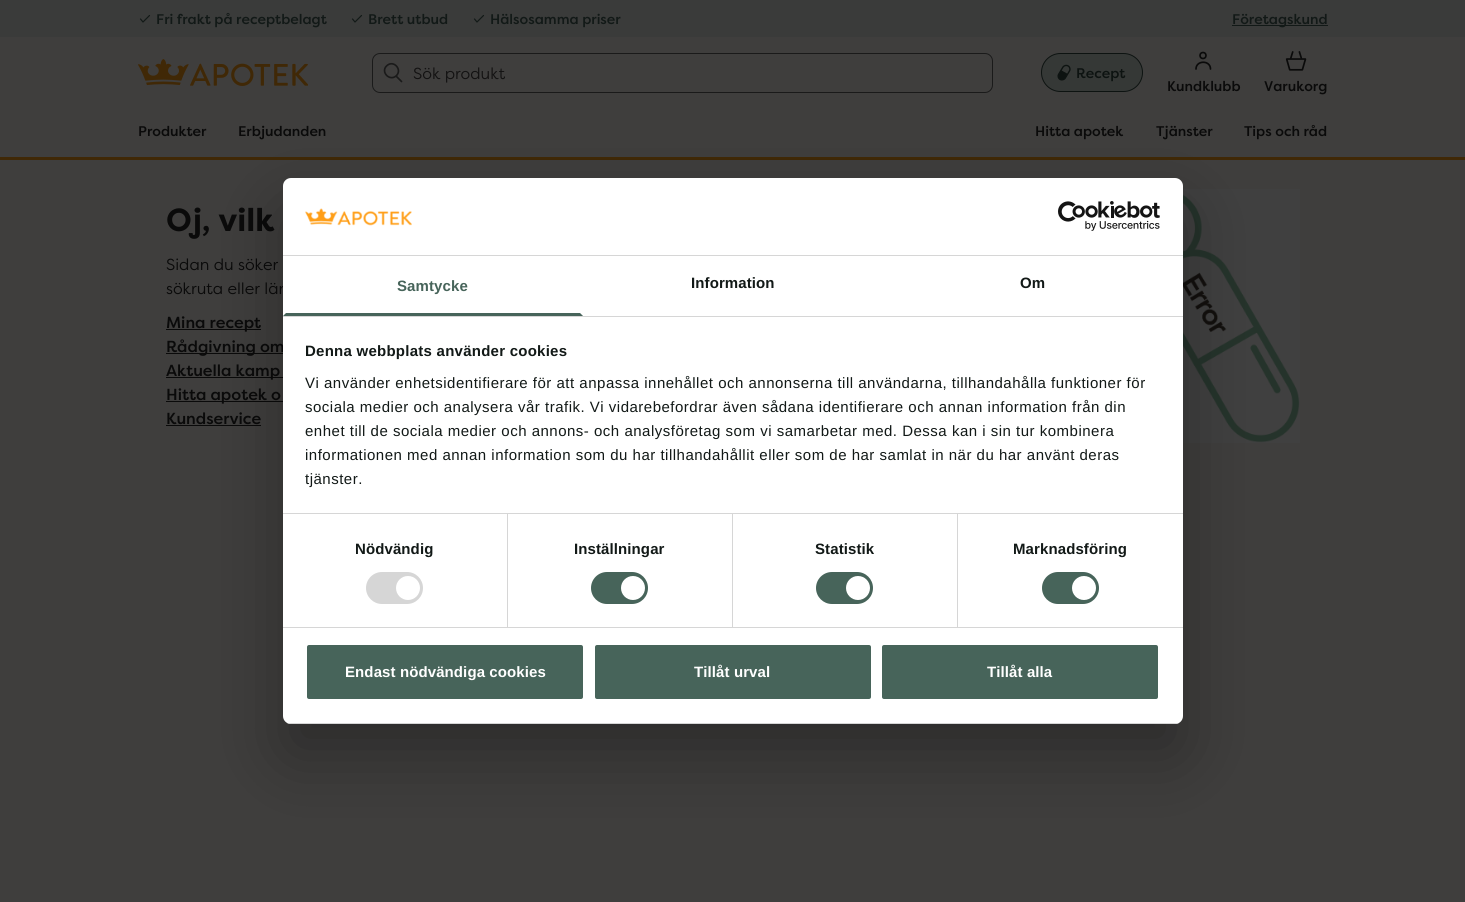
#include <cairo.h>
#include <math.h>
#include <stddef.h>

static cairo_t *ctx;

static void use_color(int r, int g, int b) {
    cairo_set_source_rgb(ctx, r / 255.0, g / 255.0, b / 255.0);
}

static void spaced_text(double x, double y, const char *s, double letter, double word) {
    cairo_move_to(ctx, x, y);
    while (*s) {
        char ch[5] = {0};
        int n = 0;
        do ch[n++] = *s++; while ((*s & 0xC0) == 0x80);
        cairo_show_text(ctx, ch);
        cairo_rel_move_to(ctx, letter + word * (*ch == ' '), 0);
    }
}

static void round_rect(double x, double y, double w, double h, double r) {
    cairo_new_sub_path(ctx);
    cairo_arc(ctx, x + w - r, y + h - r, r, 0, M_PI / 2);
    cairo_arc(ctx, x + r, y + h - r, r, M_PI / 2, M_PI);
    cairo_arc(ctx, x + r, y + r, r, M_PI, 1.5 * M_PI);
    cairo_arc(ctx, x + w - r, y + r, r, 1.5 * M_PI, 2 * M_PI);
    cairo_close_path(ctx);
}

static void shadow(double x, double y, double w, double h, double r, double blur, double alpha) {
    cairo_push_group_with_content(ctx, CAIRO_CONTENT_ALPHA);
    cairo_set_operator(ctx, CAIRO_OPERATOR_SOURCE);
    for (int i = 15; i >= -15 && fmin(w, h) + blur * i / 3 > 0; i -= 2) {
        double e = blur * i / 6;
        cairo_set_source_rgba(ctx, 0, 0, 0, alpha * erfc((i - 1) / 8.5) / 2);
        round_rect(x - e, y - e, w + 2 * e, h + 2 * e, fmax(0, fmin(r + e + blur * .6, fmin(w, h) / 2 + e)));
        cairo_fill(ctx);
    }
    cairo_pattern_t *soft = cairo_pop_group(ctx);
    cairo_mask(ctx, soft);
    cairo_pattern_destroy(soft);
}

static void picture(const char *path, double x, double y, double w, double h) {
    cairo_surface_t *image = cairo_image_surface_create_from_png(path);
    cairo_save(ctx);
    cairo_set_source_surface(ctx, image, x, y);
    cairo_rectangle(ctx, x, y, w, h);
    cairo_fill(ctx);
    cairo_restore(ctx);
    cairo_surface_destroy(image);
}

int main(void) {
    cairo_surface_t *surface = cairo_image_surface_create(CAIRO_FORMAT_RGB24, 1465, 902);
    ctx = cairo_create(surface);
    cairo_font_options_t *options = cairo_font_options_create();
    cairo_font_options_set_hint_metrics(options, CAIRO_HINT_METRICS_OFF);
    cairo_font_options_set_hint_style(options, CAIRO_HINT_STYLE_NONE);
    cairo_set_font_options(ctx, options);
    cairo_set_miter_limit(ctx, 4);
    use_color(63, 62, 61);
    cairo_paint(ctx);
    use_color(58, 59, 58);
    cairo_rectangle(ctx, 0, 0, 1465, 37);
    cairo_fill(ctx);
    cairo_new_path(ctx);
    cairo_move_to(ctx, 149.5, 15.5);
    cairo_line_to(ctx, 143, 22);
    cairo_line_to(ctx, 140.5, 19);
    use_color(18, 25, 23);
    cairo_set_line_width(ctx, 1.2);
    cairo_set_line_cap(ctx, CAIRO_LINE_CAP_ROUND);
    cairo_set_line_join(ctx, CAIRO_LINE_JOIN_ROUND);
    cairo_stroke(ctx);
    cairo_select_font_face(ctx, "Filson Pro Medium", CAIRO_FONT_SLANT_NORMAL, CAIRO_FONT_WEIGHT_NORMAL);
    cairo_set_font_size(ctx, 14);
    cairo_move_to(ctx, 156, 24);
    cairo_show_text(ctx, "Fri frakt på receptbelagt");
    cairo_new_path(ctx);
    cairo_move_to(ctx, 361.5, 15.5);
    cairo_line_to(ctx, 355, 22);
    cairo_line_to(ctx, 352.5, 19);
    cairo_stroke(ctx);
    cairo_move_to(ctx, 368, 24);
    cairo_show_text(ctx, "Brett utbud");
    cairo_new_path(ctx);
    cairo_move_to(ctx, 483.5, 15.5);
    cairo_line_to(ctx, 477, 22);
    cairo_line_to(ctx, 474.5, 19);
    cairo_stroke(ctx);
    cairo_move_to(ctx, 490, 24);
    cairo_show_text(ctx, "Hälsosamma priser");
    cairo_rectangle(ctx, 1232, 25, 96, 1);
    cairo_fill(ctx);
    cairo_move_to(ctx, 1232, 24);
    cairo_show_text(ctx, "Företagskund");
    picture("img1.png", 138, 59, 170, 27);
    round_rect(372.5, 53.5, 620, 39, 7.5);
    use_color(26, 26, 26);
    cairo_set_line_width(ctx, 1);
    cairo_set_line_cap(ctx, CAIRO_LINE_CAP_BUTT);
    cairo_set_line_join(ctx, CAIRO_LINE_JOIN_MITER);
    cairo_stroke(ctx);
    cairo_new_path(ctx);
    cairo_move_to(ctx, 396, 76);
    cairo_curve_to(ctx, 403, 70, 393.5, 59, 386.5, 66);
    cairo_curve_to(ctx, 380.5, 72, 389.5, 81.5, 396, 76);
    cairo_close_path(ctx);
    cairo_move_to(ctx, 396, 76);
    cairo_line_to(ctx, 401.5, 81.5);
    cairo_set_line_width(ctx, 1.7);
    cairo_set_line_cap(ctx, CAIRO_LINE_CAP_ROUND);
    cairo_set_line_join(ctx, CAIRO_LINE_JOIN_ROUND);
    cairo_stroke(ctx);
    cairo_select_font_face(ctx, "Filson Pro", CAIRO_FONT_SLANT_NORMAL, CAIRO_FONT_WEIGHT_NORMAL);
    cairo_set_font_size(ctx, 16);
    use_color(19, 18, 18);
    cairo_move_to(ctx, 413, 79);
    cairo_show_text(ctx, "Sök produkt");
    use_color(53, 56, 54);
    round_rect(1041.5, 53.5, 101, 38, 19);
    cairo_fill_preserve(ctx);
    use_color(13, 19, 17);
    cairo_set_line_width(ctx, 1);
    cairo_set_line_cap(ctx, CAIRO_LINE_CAP_BUTT);
    cairo_set_line_join(ctx, CAIRO_LINE_JOIN_MITER);
    cairo_stroke(ctx);
    picture("img2.png", 1057, 64, 14, 17);
    cairo_select_font_face(ctx, "Filson Pro Medium", CAIRO_FONT_SLANT_NORMAL, CAIRO_FONT_WEIGHT_NORMAL);
    cairo_set_font_size(ctx, 14);
    cairo_move_to(ctx, 1076, 78);
    cairo_show_text(ctx, "Recept");
    cairo_new_path(ctx);
    cairo_move_to(ctx, 1196, 69);
    cairo_curve_to(ctx, 1196, 60, 1210.5, 60, 1210.5, 69);
    use_color(10, 10, 10);
    cairo_set_line_width(ctx, 1.7);
    cairo_set_line_cap(ctx, CAIRO_LINE_CAP_ROUND);
    cairo_stroke(ctx);
    cairo_arc(ctx, 1203, 55.5, 3, 0, 2 * M_PI);
    cairo_set_line_cap(ctx, CAIRO_LINE_CAP_BUTT);
    cairo_stroke(ctx);
    cairo_move_to(ctx, 1167, 91);
    cairo_show_text(ctx, "Kundklubb");
    picture("img3.png", 1285, 51, 22, 20);
    cairo_move_to(ctx, 1264, 91);
    cairo_show_text(ctx, "Varukorg");
    cairo_move_to(ctx, 138, 136);
    cairo_show_text(ctx, "Produkter");
    cairo_move_to(ctx, 238, 136);
    cairo_show_text(ctx, "Erbjudanden");
    cairo_move_to(ctx, 1035, 136);
    cairo_show_text(ctx, "Hitta apotek");
    cairo_move_to(ctx, 1156, 136);
    cairo_show_text(ctx, "Tjänster");
    cairo_move_to(ctx, 1244, 136);
    cairo_show_text(ctx, "Tips och råd");
    use_color(64, 40, 6);
    cairo_rectangle(ctx, 0, 157, 1465, 3);
    cairo_fill(ctx);
    cairo_select_font_face(ctx, "Filson Pro", CAIRO_FONT_SLANT_NORMAL, CAIRO_FONT_WEIGHT_BOLD);
    cairo_set_font_size(ctx, 32);
    use_color(10, 10, 10);
    cairo_move_to(ctx, 166, 231);
    cairo_show_text(ctx, "Oj, vilk");
    cairo_select_font_face(ctx, "Filson Pro", CAIRO_FONT_SLANT_NORMAL, CAIRO_FONT_WEIGHT_NORMAL);
    cairo_set_font_size(ctx, 16);
    cairo_move_to(ctx, 166, 270);
    cairo_show_text(ctx, "Sidan du söker");
    cairo_move_to(ctx, 166, 294);
    cairo_show_text(ctx, "sökruta eller län");
    cairo_rectangle(ctx, 166, 329, 95, 1);
    cairo_fill(ctx);
    cairo_select_font_face(ctx, "Filson Pro Medium", CAIRO_FONT_SLANT_NORMAL, CAIRO_FONT_WEIGHT_NORMAL);
    cairo_move_to(ctx, 166, 328);
    cairo_show_text(ctx, "Mina recept");
    cairo_rectangle(ctx, 166, 353, 117, 1);
    cairo_fill(ctx);
    cairo_move_to(ctx, 166, 352);
    cairo_show_text(ctx, "Rådgivning om");
    cairo_rectangle(ctx, 166, 377, 117, 1);
    cairo_fill(ctx);
    cairo_move_to(ctx, 166, 376);
    cairo_show_text(ctx, "Aktuella kamp");
    cairo_rectangle(ctx, 166, 401, 117, 1);
    cairo_fill(ctx);
    cairo_move_to(ctx, 166, 400);
    cairo_show_text(ctx, "Hitta apotek o");
    cairo_move_to(ctx, 166, 424);
    cairo_show_text(ctx, "Kundservice");
    cairo_rectangle(ctx, 166, 425, 95, 1);
    cairo_fill(ctx);
    picture("img4.png", 1183, 189, 117, 254);
    use_color(0, 0, 0);
    shadow(283, 210, 900, 546, 8, 34, 0.3);
    use_color(255, 255, 255);
    round_rect(283, 178, 900, 546, 8);
    cairo_fill(ctx);
    use_color(214, 214, 214);
    cairo_rectangle(ctx, 283, 255, 900, 1);
    cairo_fill(ctx);
    picture("img5.png", 305, 208, 107, 18);
    picture("img6.png", 1058, 201, 102, 30);
    cairo_rectangle(ctx, 283, 316, 900, 1);
    cairo_fill(ctx);
    use_color(71, 100, 90);
    cairo_new_path(ctx);
    cairo_move_to(ctx, 583, 316);
    cairo_line_to(ctx, 283, 316);
    cairo_line_to(ctx, 286, 313);
    cairo_line_to(ctx, 580, 313);
    cairo_close_path(ctx);
    cairo_fill(ctx);
    cairo_select_font_face(ctx, "Liberation Sans", CAIRO_FONT_SLANT_NORMAL, CAIRO_FONT_WEIGHT_BOLD);
    cairo_set_font_size(ctx, 15);
    spaced_text(397, 291, "Samtycke", 0.1, 0);
    use_color(18, 25, 23);
    spaced_text(691, 288, "Information", 0.1, 0);
    spaced_text(1020, 288, "Om", 0.1, 0);
    use_color(214, 214, 214);
    cairo_rectangle(ctx, 283, 513, 900, 1);
    cairo_fill(ctx);
    use_color(18, 25, 23);
    spaced_text(305, 356, "Denna webbplats använder cookies", 0.25, 0);
    cairo_select_font_face(ctx, "Liberation Sans", CAIRO_FONT_SLANT_NORMAL, CAIRO_FONT_WEIGHT_NORMAL);
    spaced_text(305, 388, "Vi använder enhetsidentifierare för att anpassa innehållet och annonserna till användarna, tillhandahålla funktioner för", 0.5, 0);
    spaced_text(305, 412, "sociala medier och analysera vår trafik. Vi vidarebefordrar även sådana identifierare och annan information från din", 0.5, 0);
    spaced_text(305, 436, "enhet till de sociala medier och annons- och analysföretag som vi samarbetar med. Dessa kan i sin tur kombinera", 0.5, 0);
    spaced_text(305, 460, "informationen med annan information som du har tillhandahållit eller som de har samlat in när du har använt deras", 0.5, 0);
    spaced_text(305, 484, "tjänster.", 0.5, 0);
    use_color(214, 214, 214);
    cairo_rectangle(ctx, 283, 627, 900, 1);
    cairo_fill(ctx);
    cairo_rectangle(ctx, 507, 514, 1, 113);
    cairo_fill(ctx);
    cairo_select_font_face(ctx, "Liberation Sans", CAIRO_FONT_SLANT_NORMAL, CAIRO_FONT_WEIGHT_BOLD);
    use_color(18, 25, 23);
    spaced_text(355, 554, "Nödvändig", 0.1, 0);
    use_color(214, 214, 214);
    round_rect(366, 572, 57, 32, 16);
    cairo_fill(ctx);
    use_color(255, 255, 255);
    cairo_arc(ctx, 408, 588, 12, 0, 2 * M_PI);
    cairo_fill(ctx);
    use_color(214, 214, 214);
    cairo_rectangle(ctx, 732, 514, 1, 113);
    cairo_fill(ctx);
    use_color(18, 25, 23);
    spaced_text(574, 554, "Inställningar", 0.1, 0);
    use_color(71, 100, 90);
    round_rect(591, 572, 57, 32, 16);
    cairo_fill(ctx);
    use_color(255, 255, 255);
    cairo_arc(ctx, 633, 588, 12, 0, 2 * M_PI);
    cairo_fill(ctx);
    use_color(214, 214, 214);
    cairo_rectangle(ctx, 957, 514, 1, 113);
    cairo_fill(ctx);
    use_color(18, 25, 23);
    spaced_text(815, 554, "Statistik", 0.1, 0);
    use_color(71, 100, 90);
    round_rect(816, 572, 57, 32, 16);
    cairo_fill(ctx);
    use_color(255, 255, 255);
    cairo_arc(ctx, 858, 588, 12, 0, 2 * M_PI);
    cairo_fill(ctx);
    use_color(18, 25, 23);
    spaced_text(1013, 554, "Marknadsföring", 0.1, 0);
    use_color(71, 100, 90);
    round_rect(1042, 572, 57, 32, 16);
    cairo_fill(ctx);
    use_color(255, 255, 255);
    cairo_arc(ctx, 1084, 588, 12, 0, 2 * M_PI);
    cairo_fill(ctx);
    cairo_save(ctx);
    round_rect(283, 178, 900, 546, 8);
    cairo_clip(ctx);
    use_color(214, 214, 214);
    cairo_rectangle(ctx, 283, 723, 900, 1);
    cairo_fill(ctx);
    cairo_restore(ctx);
    use_color(71, 100, 90);
    round_rect(306, 644, 278, 56, 3);
    cairo_fill_preserve(ctx);
    use_color(255, 255, 255);
    cairo_set_line_width(ctx, 2);
    cairo_stroke(ctx);
    spaced_text(345, 677, "Endast nödvändiga cookies", 0.1, 0);
    use_color(71, 100, 90);
    round_rect(594, 644, 278, 56, 3);
    cairo_fill_preserve(ctx);
    use_color(255, 255, 255);
    cairo_stroke(ctx);
    spaced_text(694, 677, "Tillåt urval", 0.1, 0);
    use_color(71, 100, 90);
    round_rect(881, 644, 278, 56, 3);
    cairo_fill_preserve(ctx);
    use_color(255, 255, 255);
    cairo_stroke(ctx);
    spaced_text(987, 677, "Tillåt alla", 0.1, 0);
    cairo_surface_write_to_png(surface, "result.png");
    cairo_font_options_destroy(options);
    cairo_destroy(ctx);
    cairo_surface_destroy(surface);
    return 0;
}
